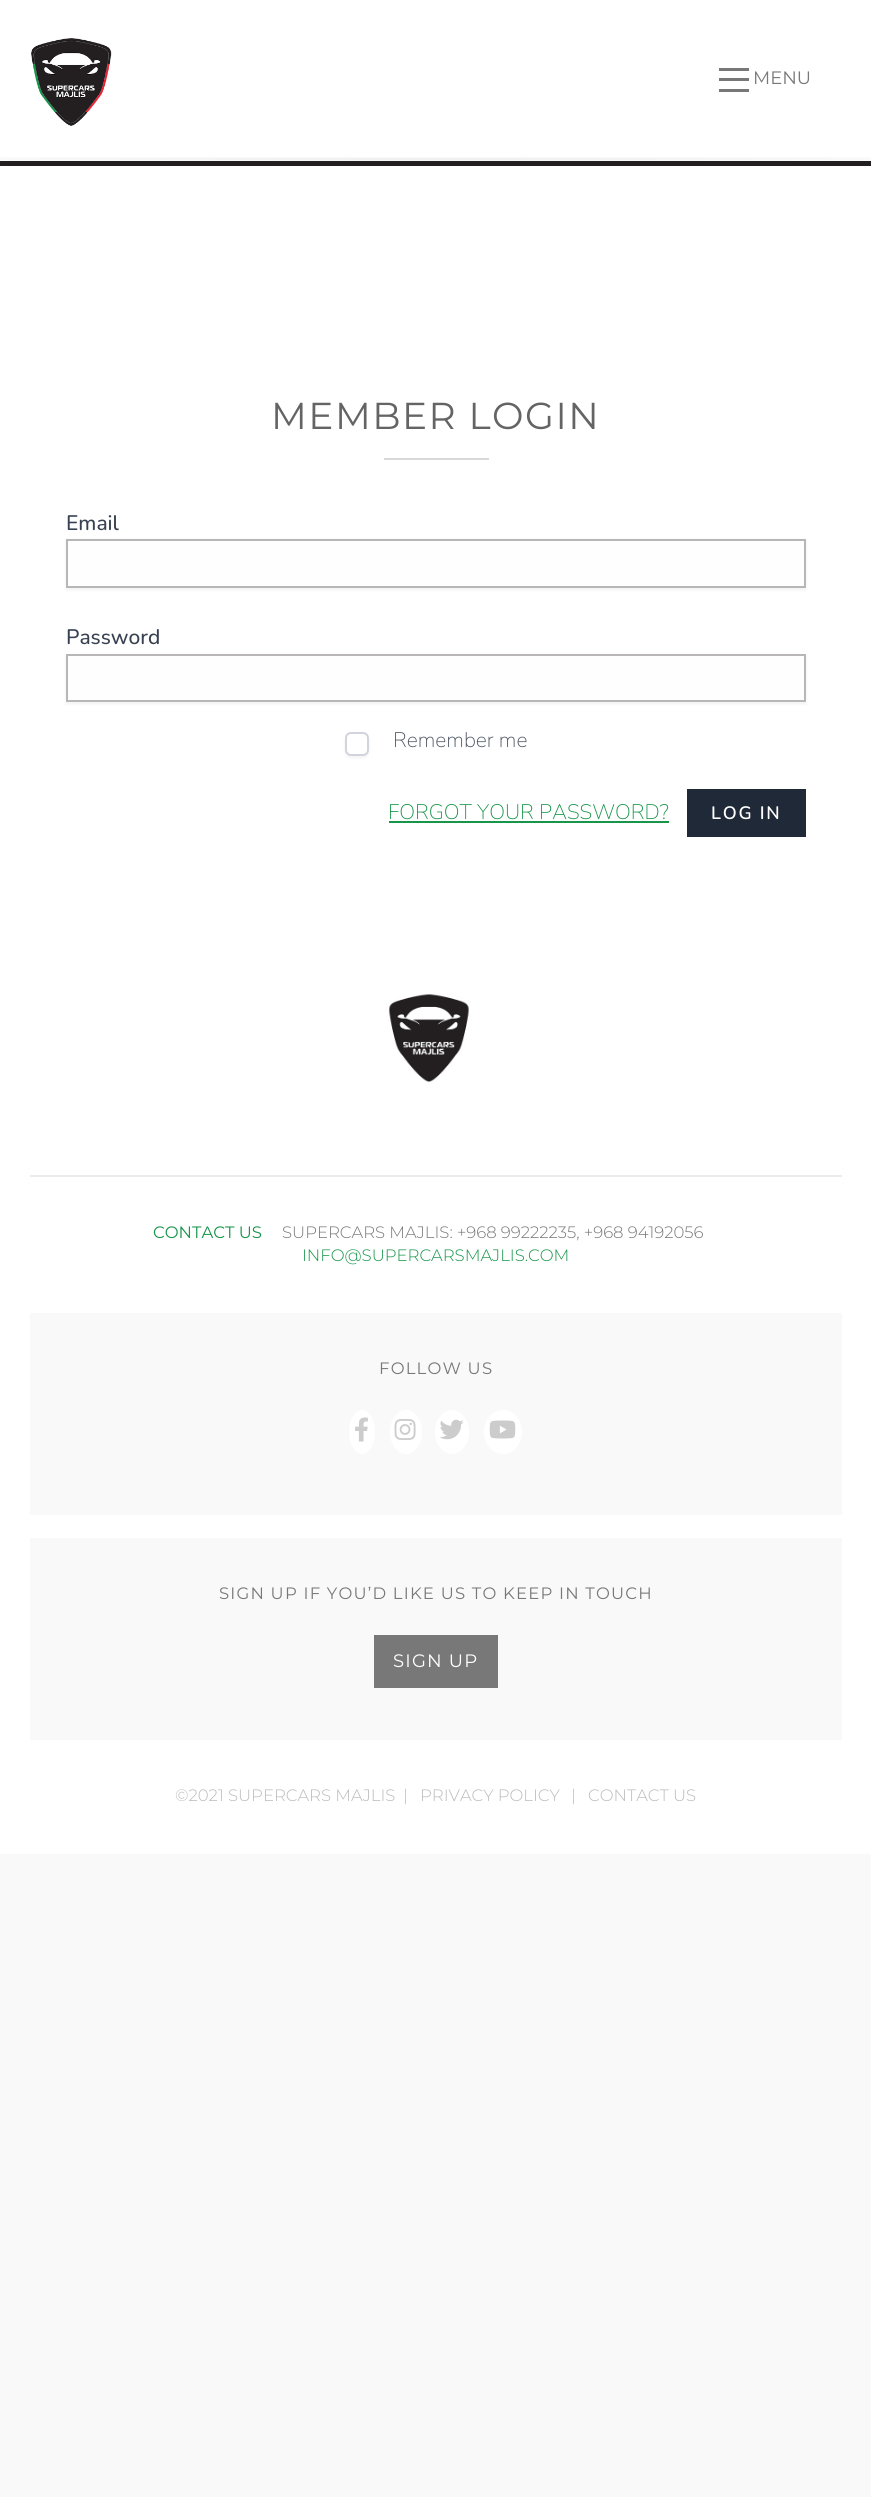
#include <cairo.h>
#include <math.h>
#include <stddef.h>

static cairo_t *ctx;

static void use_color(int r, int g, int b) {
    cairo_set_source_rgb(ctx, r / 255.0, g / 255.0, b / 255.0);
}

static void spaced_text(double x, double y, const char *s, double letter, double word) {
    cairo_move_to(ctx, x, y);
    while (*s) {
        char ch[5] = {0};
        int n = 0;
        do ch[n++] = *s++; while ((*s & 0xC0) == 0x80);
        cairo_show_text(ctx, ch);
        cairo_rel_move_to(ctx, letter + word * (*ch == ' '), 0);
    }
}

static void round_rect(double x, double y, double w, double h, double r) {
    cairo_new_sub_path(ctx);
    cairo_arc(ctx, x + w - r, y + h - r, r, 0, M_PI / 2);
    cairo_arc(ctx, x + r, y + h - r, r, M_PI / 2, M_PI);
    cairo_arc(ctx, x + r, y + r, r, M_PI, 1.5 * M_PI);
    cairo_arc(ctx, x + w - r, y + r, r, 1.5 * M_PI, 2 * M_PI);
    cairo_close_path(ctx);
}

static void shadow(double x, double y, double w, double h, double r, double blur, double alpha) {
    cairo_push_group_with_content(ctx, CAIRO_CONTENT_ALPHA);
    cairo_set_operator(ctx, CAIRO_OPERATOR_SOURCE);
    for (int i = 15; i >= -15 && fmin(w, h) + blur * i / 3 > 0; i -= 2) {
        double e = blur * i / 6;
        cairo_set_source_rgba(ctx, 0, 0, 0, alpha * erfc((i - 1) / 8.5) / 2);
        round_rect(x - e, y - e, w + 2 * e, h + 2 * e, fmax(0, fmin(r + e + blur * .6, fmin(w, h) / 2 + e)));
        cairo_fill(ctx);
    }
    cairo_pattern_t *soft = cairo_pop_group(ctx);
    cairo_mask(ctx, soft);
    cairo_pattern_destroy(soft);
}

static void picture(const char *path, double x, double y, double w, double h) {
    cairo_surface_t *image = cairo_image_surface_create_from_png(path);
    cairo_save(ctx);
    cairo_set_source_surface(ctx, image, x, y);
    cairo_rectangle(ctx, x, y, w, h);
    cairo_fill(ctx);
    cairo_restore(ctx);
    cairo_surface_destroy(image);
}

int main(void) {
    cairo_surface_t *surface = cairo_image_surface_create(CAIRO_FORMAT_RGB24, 871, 2497);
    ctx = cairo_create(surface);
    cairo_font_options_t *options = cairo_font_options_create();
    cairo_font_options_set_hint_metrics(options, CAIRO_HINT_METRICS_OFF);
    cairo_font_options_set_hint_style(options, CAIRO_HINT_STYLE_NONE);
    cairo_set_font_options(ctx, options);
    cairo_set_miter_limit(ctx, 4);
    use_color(249, 249, 249);
    cairo_paint(ctx);
    use_color(255, 255, 255);
    cairo_rectangle(ctx, 0, 0, 871, 1854);
    cairo_fill(ctx);
    picture("img1.png", 31, 38, 81, 88);
    use_color(120, 120, 120);
    cairo_rectangle(ctx, 719, 89, 30, 3);
    cairo_fill(ctx);
    cairo_rectangle(ctx, 719, 78, 30, 3);
    cairo_fill(ctx);
    cairo_rectangle(ctx, 719, 68, 30, 3);
    cairo_fill(ctx);
    cairo_select_font_face(ctx, "Montserrat", CAIRO_FONT_SLANT_NORMAL, CAIRO_FONT_WEIGHT_NORMAL);
    cairo_set_font_size(ctx, 18);
    cairo_move_to(ctx, 753, 84);
    cairo_show_text(ctx, "MENU");
    picture("img2.png", 0, 157, 871, 4);
    use_color(35, 31, 32);
    cairo_rectangle(ctx, 0, 161, 871, 5);
    cairo_fill(ctx);
    cairo_set_font_size(ctx, 37.5);
    use_color(100, 100, 100);
    spaced_text(271, 429, "MEMBER LOGIN", 1.5, 0);
    use_color(217, 217, 217);
    cairo_rectangle(ctx, 384, 458, 105, 2);
    cairo_fill(ctx);
    cairo_select_font_face(ctx, "Nunito Medium", CAIRO_FONT_SLANT_NORMAL, CAIRO_FONT_WEIGHT_NORMAL);
    cairo_set_font_size(ctx, 21);
    use_color(55, 65, 81);
    cairo_move_to(ctx, 66, 530);
    cairo_show_text(ctx, "Email");
    use_color(0, 0, 0);
    shadow(66, 540, 740, 50, 0, 1.5, 0.05);
    use_color(254, 254, 254);
    cairo_rectangle(ctx, 67, 540, 738, 47);
    cairo_fill_preserve(ctx);
    use_color(184, 182, 182);
    cairo_stroke(ctx);
    use_color(55, 65, 81);
    cairo_move_to(ctx, 66, 644);
    cairo_show_text(ctx, "Password");
    use_color(0, 0, 0);
    shadow(66, 656, 740, 48, 0, 1.5, 0.05);
    use_color(254, 254, 254);
    cairo_rectangle(ctx, 67, 655, 738, 46);
    cairo_fill_preserve(ctx);
    use_color(184, 182, 182);
    cairo_stroke(ctx);
    use_color(0, 0, 0);
    shadow(345, 734, 24, 24, 6, 1.5, 0.05);
    use_color(255, 255, 255);
    round_rect(346, 733, 22, 22, 5);
    cairo_fill_preserve(ctx);
    use_color(209, 213, 219);
    cairo_stroke(ctx);
    cairo_select_font_face(ctx, "Nunito ExtraLight", CAIRO_FONT_SLANT_NORMAL, CAIRO_FONT_WEIGHT_NORMAL);
    use_color(75, 85, 99);
    cairo_move_to(ctx, 393, 747);
    cairo_show_text(ctx, "Remember me");
    use_color(23, 149, 73);
    cairo_move_to(ctx, 388, 819);
    cairo_show_text(ctx, "FORGOT YOUR PASSWORD?");
    cairo_rectangle(ctx, 389, 821, 280, 2);
    cairo_fill(ctx);
    use_color(31, 41, 55);
    cairo_rectangle(ctx, 687, 789, 119, 48);
    cairo_fill(ctx);
    cairo_select_font_face(ctx, "Nunito SemiBold", CAIRO_FONT_SLANT_NORMAL, CAIRO_FONT_WEIGHT_NORMAL);
    cairo_set_font_size(ctx, 18);
    use_color(255, 255, 255);
    spaced_text(711, 819, "LOG IN", 1.75, 0);
    picture("img3.png", 386, 993, 83, 90);
    use_color(236, 236, 236);
    cairo_rectangle(ctx, 30, 1175, 812, 2);
    cairo_fill(ctx);
    cairo_select_font_face(ctx, "Montserrat", CAIRO_FONT_SLANT_NORMAL, CAIRO_FONT_WEIGHT_NORMAL);
    cairo_set_font_size(ctx, 16.5);
    use_color(23, 149, 73);
    cairo_move_to(ctx, 153, 1238);
    cairo_show_text(ctx, "CONTACT US");
    cairo_select_font_face(ctx, "Montserrat Light", CAIRO_FONT_SLANT_NORMAL, CAIRO_FONT_WEIGHT_NORMAL);
    use_color(120, 120, 120);
    cairo_move_to(ctx, 282, 1238);
    cairo_show_text(ctx, "SUPERCARS MAJLIS: +968 99222235, +968 94192056");
    use_color(23, 149, 73);
    cairo_move_to(ctx, 302, 1261);
    cairo_show_text(ctx, "INFO@SUPERCARSMAJLIS.COM");
    use_color(249, 249, 249);
    cairo_rectangle(ctx, 30, 1313, 812, 202);
    cairo_fill(ctx);
    cairo_select_font_face(ctx, "Montserrat", CAIRO_FONT_SLANT_NORMAL, CAIRO_FONT_WEIGHT_NORMAL);
    use_color(120, 120, 120);
    spaced_text(379, 1374, "FOLLOW US", 1.2, 0);
    use_color(255, 255, 255);
    cairo_new_path(ctx);
    cairo_move_to(ctx, 362, 1410);
    cairo_curve_to(ctx, 369, 1410, 375, 1420, 375, 1432);
    cairo_curve_to(ctx, 375, 1444, 369, 1454, 362, 1454);
    cairo_curve_to(ctx, 355, 1454, 349, 1444, 349, 1432);
    cairo_curve_to(ctx, 349, 1420, 355, 1410, 362, 1410);
    cairo_close_path(ctx);
    cairo_fill(ctx);
    picture("img4.png", 355, 1417, 13, 25);
    cairo_new_path(ctx);
    cairo_move_to(ctx, 406, 1410);
    cairo_curve_to(ctx, 415, 1410, 422, 1420, 422, 1432);
    cairo_curve_to(ctx, 422, 1444, 415, 1454, 406, 1454);
    cairo_curve_to(ctx, 397, 1454, 390, 1444, 390, 1432);
    cairo_curve_to(ctx, 390, 1420, 397, 1410, 406, 1410);
    cairo_close_path(ctx);
    cairo_fill(ctx);
    picture("img5.png", 394, 1419, 22, 21);
    cairo_new_path(ctx);
    cairo_move_to(ctx, 452, 1410);
    cairo_curve_to(ctx, 461.5, 1410, 469, 1420, 469, 1432);
    cairo_curve_to(ctx, 469, 1444, 461.5, 1454, 452, 1454);
    cairo_curve_to(ctx, 442.5, 1454, 435, 1444, 435, 1432);
    cairo_curve_to(ctx, 435, 1420, 442.5, 1410, 452, 1410);
    cairo_close_path(ctx);
    cairo_fill(ctx);
    picture("img6.png", 440, 1419, 24, 21);
    cairo_new_path(ctx);
    cairo_move_to(ctx, 503, 1410);
    cairo_curve_to(ctx, 513.5, 1410, 522, 1420, 522, 1432);
    cairo_curve_to(ctx, 522, 1444, 513.5, 1454, 503, 1454);
    cairo_curve_to(ctx, 492.5, 1454, 484, 1444, 484, 1432);
    cairo_curve_to(ctx, 484, 1420, 492.5, 1410, 503, 1410);
    cairo_close_path(ctx);
    cairo_fill(ctx);
    picture("img7.png", 489, 1420, 27, 19);
    use_color(249, 249, 249);
    cairo_rectangle(ctx, 30, 1538, 812, 202);
    cairo_fill(ctx);
    use_color(120, 120, 120);
    spaced_text(219, 1599, "SIGN UP IF YOU’D LIKE US TO KEEP IN TOUCH", 1.2, 0);
    cairo_rectangle(ctx, 374, 1635, 124, 53);
    cairo_fill(ctx);
    cairo_set_font_size(ctx, 18);
    use_color(255, 255, 255);
    spaced_text(393, 1667, "SIGN UP", 1.2, 0);
    cairo_select_font_face(ctx, "Montserrat Light", CAIRO_FONT_SLANT_NORMAL, CAIRO_FONT_WEIGHT_NORMAL);
    cairo_set_font_size(ctx, 16.5);
    use_color(187, 187, 187);
    cairo_move_to(ctx, 175, 1801);
    cairo_show_text(ctx, "©2021 SUPERCARS MAJLIS");
    cairo_move_to(ctx, 403, 1801);
    cairo_show_text(ctx, "|");
    cairo_move_to(ctx, 420, 1801);
    cairo_show_text(ctx, "PRIVACY POLICY");
    cairo_move_to(ctx, 571, 1801);
    cairo_show_text(ctx, "|");
    cairo_move_to(ctx, 588, 1801);
    cairo_show_text(ctx, "CONTACT US");
    cairo_surface_write_to_png(surface, "result.png");
    cairo_font_options_destroy(options);
    cairo_destroy(ctx);
    cairo_surface_destroy(surface);
    return 0;
}
